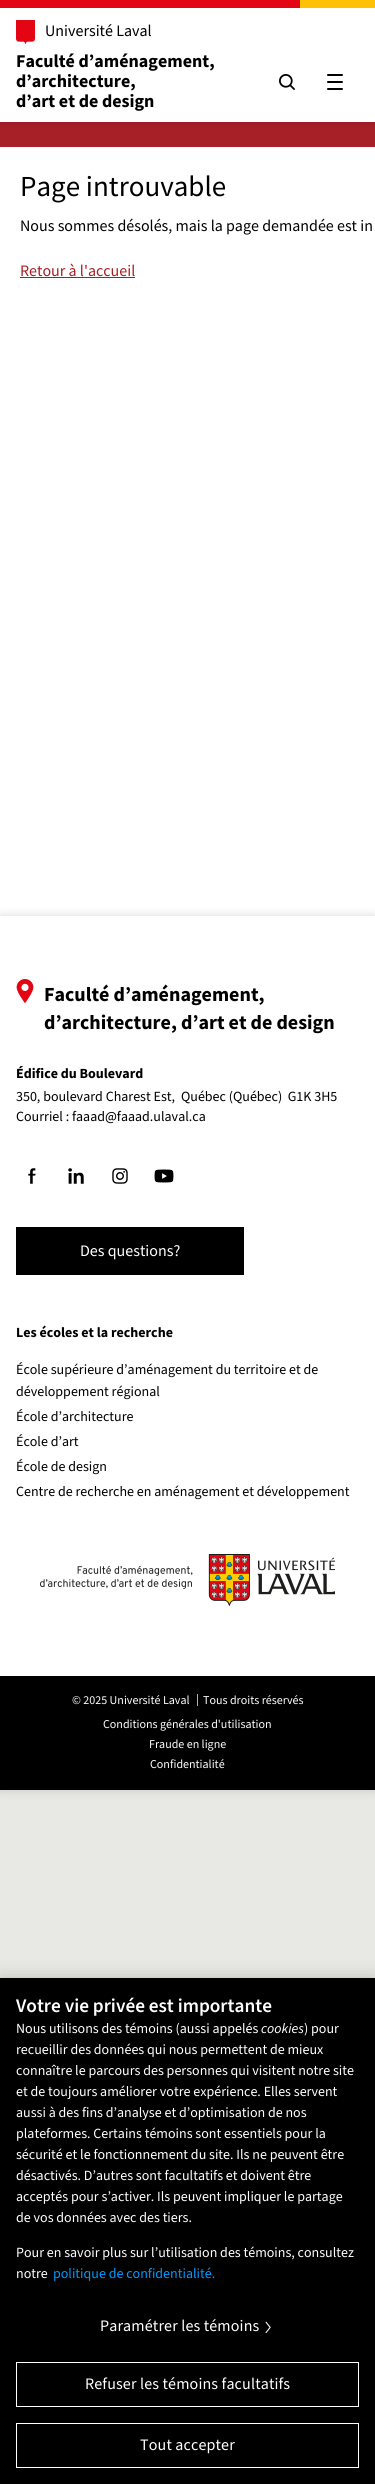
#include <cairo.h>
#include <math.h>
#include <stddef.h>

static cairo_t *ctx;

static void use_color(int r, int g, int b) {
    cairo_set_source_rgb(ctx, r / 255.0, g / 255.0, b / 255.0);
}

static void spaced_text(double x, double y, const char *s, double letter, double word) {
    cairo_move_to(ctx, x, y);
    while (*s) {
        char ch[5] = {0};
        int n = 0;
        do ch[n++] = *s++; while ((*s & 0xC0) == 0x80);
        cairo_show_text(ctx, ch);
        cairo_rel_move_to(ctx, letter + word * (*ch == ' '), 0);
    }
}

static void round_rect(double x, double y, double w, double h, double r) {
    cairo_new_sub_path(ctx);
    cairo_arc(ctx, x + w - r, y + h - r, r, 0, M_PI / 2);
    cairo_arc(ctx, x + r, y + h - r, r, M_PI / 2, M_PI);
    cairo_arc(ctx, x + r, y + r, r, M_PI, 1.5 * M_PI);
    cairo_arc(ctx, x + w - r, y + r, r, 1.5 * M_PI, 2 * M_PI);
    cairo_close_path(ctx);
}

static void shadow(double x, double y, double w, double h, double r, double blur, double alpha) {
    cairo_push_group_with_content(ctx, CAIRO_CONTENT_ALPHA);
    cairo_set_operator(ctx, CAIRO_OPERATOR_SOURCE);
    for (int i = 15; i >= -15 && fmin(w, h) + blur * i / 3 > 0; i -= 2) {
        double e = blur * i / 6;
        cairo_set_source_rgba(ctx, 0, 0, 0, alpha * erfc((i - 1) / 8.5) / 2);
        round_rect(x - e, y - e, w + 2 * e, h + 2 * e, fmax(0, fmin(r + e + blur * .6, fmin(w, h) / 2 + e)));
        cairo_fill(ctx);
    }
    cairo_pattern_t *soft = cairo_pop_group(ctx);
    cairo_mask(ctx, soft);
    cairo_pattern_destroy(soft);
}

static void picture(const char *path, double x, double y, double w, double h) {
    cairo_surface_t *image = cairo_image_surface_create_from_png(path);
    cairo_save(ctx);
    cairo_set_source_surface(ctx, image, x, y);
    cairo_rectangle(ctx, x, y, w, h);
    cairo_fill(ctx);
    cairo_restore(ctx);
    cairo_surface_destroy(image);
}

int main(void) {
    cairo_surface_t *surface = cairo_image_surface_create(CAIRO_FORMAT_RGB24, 375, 2484);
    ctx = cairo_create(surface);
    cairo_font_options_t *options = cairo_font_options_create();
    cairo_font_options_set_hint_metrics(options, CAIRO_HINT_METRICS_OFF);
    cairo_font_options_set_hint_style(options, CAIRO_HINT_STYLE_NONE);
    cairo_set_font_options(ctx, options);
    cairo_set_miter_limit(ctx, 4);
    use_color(232, 233, 228);
    cairo_paint(ctx);
    use_color(167, 32, 39);
    cairo_rectangle(ctx, 0, 122, 375, 25);
    cairo_fill(ctx);
    use_color(0, 0, 0);
    shadow(0, 1, 375, 122, 0, 3.5, 0.15);
    use_color(227, 5, 19);
    cairo_rectangle(ctx, 0, 0, 300, 8);
    cairo_fill(ctx);
    use_color(255, 193, 3);
    cairo_rectangle(ctx, 300, 0, 75, 8);
    cairo_fill(ctx);
    use_color(255, 255, 255);
    cairo_rectangle(ctx, 0, 8, 375, 114);
    cairo_fill(ctx);
    picture("img1.png", 16, 20, 19, 24);
    cairo_select_font_face(ctx, "Source Sans 3", CAIRO_FONT_SLANT_NORMAL, CAIRO_FONT_WEIGHT_NORMAL);
    cairo_set_font_size(ctx, 16);
    use_color(0, 0, 0);
    cairo_move_to(ctx, 45, 36);
    cairo_show_text(ctx, "Université Laval");
    cairo_select_font_face(ctx, "Source Sans 3", CAIRO_FONT_SLANT_NORMAL, CAIRO_FONT_WEIGHT_BOLD);
    cairo_set_font_size(ctx, 18);
    cairo_move_to(ctx, 16, 67);
    cairo_show_text(ctx, "Faculté d’aménagement,");
    cairo_move_to(ctx, 16, 87);
    cairo_show_text(ctx, "d’architecture,");
    cairo_move_to(ctx, 16, 107);
    cairo_show_text(ctx, "d’art et de design");
    picture("img2.png", 279, 74, 16, 16);
    picture("img3.png", 327, 74, 16, 16);
    use_color(255, 255, 255);
    cairo_rectangle(ctx, 0, 147, 375, 769);
    cairo_fill(ctx);
    cairo_select_font_face(ctx, "Source Sans Pro", CAIRO_FONT_SLANT_NORMAL, CAIRO_FONT_WEIGHT_NORMAL);
    cairo_set_font_size(ctx, 29);
    use_color(0, 0, 0);
    cairo_move_to(ctx, 20, 196);
    cairo_show_text(ctx, "Page introuvable");
    cairo_set_font_size(ctx, 16);
    cairo_move_to(ctx, 20, 231);
    cairo_show_text(ctx, "Nous sommes désolés, mais la page demandée est in");
    use_color(169, 30, 34);
    cairo_move_to(ctx, 20, 276);
    cairo_show_text(ctx, "Retour à l'accueil");
    cairo_rectangle(ctx, 20, 277, 115, 1);
    cairo_fill(ctx);
    use_color(0, 0, 0);
    shadow(0, 916, 375, 874, 0, 5, 0.15);
    use_color(255, 255, 255);
    cairo_rectangle(ctx, 0, 916, 375, 760);
    cairo_fill(ctx);
    picture("img4.png", 16, 979, 18, 24);
    cairo_select_font_face(ctx, "Source Sans Pro", CAIRO_FONT_SLANT_NORMAL, CAIRO_FONT_WEIGHT_BOLD);
    cairo_set_font_size(ctx, 20);
    use_color(0, 0, 0);
    cairo_move_to(ctx, 44, 1001);
    cairo_show_text(ctx, "Faculté d’aménagement,");
    cairo_move_to(ctx, 44, 1029);
    cairo_show_text(ctx, "d’architecture, d’art et de design");
    cairo_select_font_face(ctx, "Source Sans 3", CAIRO_FONT_SLANT_NORMAL, CAIRO_FONT_WEIGHT_BOLD);
    cairo_set_font_size(ctx, 14);
    cairo_move_to(ctx, 16, 1078);
    cairo_show_text(ctx, "Édifice du Boulevard");
    cairo_select_font_face(ctx, "Source Sans 3", CAIRO_FONT_SLANT_NORMAL, CAIRO_FONT_WEIGHT_NORMAL);
    cairo_move_to(ctx, 16, 1101);
    cairo_show_text(ctx, "350, boulevard Charest Est,");
    cairo_move_to(ctx, 181, 1101);
    cairo_show_text(ctx, "Québec (Québec)  G1K 3H5");
    cairo_move_to(ctx, 16, 1121);
    cairo_show_text(ctx, "Courriel : faaad@faaad.ulaval.ca");
    picture("img5.png", 28, 1168, 8, 16);
    picture("img6.png", 68, 1168, 16, 16);
    picture("img7.png", 112, 1168, 16, 16);
    picture("img8.png", 154, 1169, 20, 14);
    cairo_rectangle(ctx, 16, 1227, 228, 48);
    cairo_fill(ctx);
    cairo_set_font_size(ctx, 16);
    use_color(255, 255, 255);
    cairo_move_to(ctx, 80, 1256);
    cairo_show_text(ctx, "Des questions?");
    cairo_select_font_face(ctx, "Source Sans Pro", CAIRO_FONT_SLANT_NORMAL, CAIRO_FONT_WEIGHT_BOLD);
    cairo_set_font_size(ctx, 14);
    use_color(0, 0, 0);
    cairo_move_to(ctx, 16, 1337);
    cairo_show_text(ctx, "Les écoles et la recherche");
    cairo_select_font_face(ctx, "Source Sans 3", CAIRO_FONT_SLANT_NORMAL, CAIRO_FONT_WEIGHT_NORMAL);
    cairo_move_to(ctx, 16, 1374);
    cairo_show_text(ctx, "École supérieure d’aménagement du territoire et de");
    cairo_move_to(ctx, 16, 1396);
    cairo_show_text(ctx, "développement régional");
    cairo_move_to(ctx, 16, 1421);
    cairo_show_text(ctx, "École d’architecture");
    cairo_move_to(ctx, 16, 1446);
    cairo_show_text(ctx, "École d’art");
    cairo_move_to(ctx, 16, 1471);
    cairo_show_text(ctx, "École de design");
    cairo_move_to(ctx, 16, 1496);
    cairo_show_text(ctx, "Centre de recherche en aménagement et développement");
    picture("img9.png", 40, 1554, 295, 52);
    cairo_rectangle(ctx, 0, 1676, 375, 114);
    cairo_fill(ctx);
    cairo_set_font_size(ctx, 12);
    use_color(255, 255, 255);
    cairo_move_to(ctx, 72, 1704);
    cairo_show_text(ctx, "© 2025 Université Laval");
    cairo_move_to(ctx, 196, 1703);
    cairo_show_text(ctx, "|");
    cairo_move_to(ctx, 203, 1704);
    cairo_show_text(ctx, "Tous droits réservés");
    cairo_move_to(ctx, 103, 1728);
    cairo_show_text(ctx, "Conditions générales d'utilisation");
    cairo_move_to(ctx, 149, 1748);
    cairo_show_text(ctx, "Fraude en ligne");
    cairo_move_to(ctx, 150, 1768);
    cairo_show_text(ctx, "Confidentialité");
    use_color(0, 0, 0);
    shadow(0, 1978, 375, 506, 0, 9, 0.2);
    use_color(0, 0, 0);
    cairo_rectangle(ctx, 0, 1978, 375, 506);
    cairo_fill(ctx);
    cairo_select_font_face(ctx, "Source Sans 3 SemiBold", CAIRO_FONT_SLANT_NORMAL, CAIRO_FONT_WEIGHT_NORMAL);
    cairo_set_font_size(ctx, 19.25);
    use_color(255, 255, 255);
    cairo_move_to(ctx, 16, 2012);
    cairo_show_text(ctx, "Votre vie privée est importante");
    cairo_select_font_face(ctx, "Source Sans 3", CAIRO_FONT_SLANT_NORMAL, CAIRO_FONT_WEIGHT_NORMAL);
    cairo_set_font_size(ctx, 14);
    cairo_move_to(ctx, 16, 2033);
    cairo_show_text(ctx, "Nous utilisons des témoins (aussi appelés");
    cairo_select_font_face(ctx, "Source Sans 3", CAIRO_FONT_SLANT_ITALIC, CAIRO_FONT_WEIGHT_NORMAL);
    cairo_move_to(ctx, 261, 2033);
    cairo_show_text(ctx, "cookies");
    cairo_select_font_face(ctx, "Source Sans 3", CAIRO_FONT_SLANT_NORMAL, CAIRO_FONT_WEIGHT_NORMAL);
    cairo_move_to(ctx, 304, 2033);
    cairo_show_text(ctx, ") pour");
    cairo_move_to(ctx, 16, 2054);
    cairo_show_text(ctx, "recueillir des données qui nous permettent de mieux");
    cairo_move_to(ctx, 16, 2075);
    cairo_show_text(ctx, "connaître le parcours des personnes qui visitent notre site");
    cairo_move_to(ctx, 16, 2096);
    cairo_show_text(ctx, "et de toujours améliorer votre expérience. Elles servent");
    cairo_move_to(ctx, 16, 2117);
    cairo_show_text(ctx, "aussi à des fins d’analyse et d’optimisation de nos");
    cairo_move_to(ctx, 16, 2138);
    cairo_show_text(ctx, "plateformes. Certains témoins sont essentiels pour la");
    cairo_move_to(ctx, 16, 2159);
    cairo_show_text(ctx, "sécurité et le fonctionnement du site. Ils ne peuvent être");
    cairo_move_to(ctx, 16, 2180);
    cairo_show_text(ctx, "désactivés. D’autres sont facultatifs et doivent être");
    cairo_move_to(ctx, 16, 2201);
    cairo_show_text(ctx, "acceptés pour s’activer. Ils peuvent impliquer le partage");
    cairo_move_to(ctx, 16, 2222);
    cairo_show_text(ctx, "de vos données avec des tiers.");
    cairo_move_to(ctx, 16, 2257);
    cairo_show_text(ctx, "Pour en savoir plus sur l’utilisation des témoins, consultez");
    cairo_move_to(ctx, 16, 2278);
    cairo_show_text(ctx, "notre");
    use_color(0, 153, 255);
    cairo_move_to(ctx, 53, 2278);
    cairo_show_text(ctx, "politique de confidentialité.");
    cairo_set_font_size(ctx, 16);
    use_color(255, 255, 255);
    spaced_text(100, 2331, "Paramétrer les témoins", 0.15, 0);
    picture("img10.png", 265, 2321, 6, 12);
    cairo_rectangle(ctx, 16.5, 2362.5, 342, 44);
    cairo_set_line_width(ctx, 1);
    cairo_stroke(ctx);
    spaced_text(85, 2389, "Refuser les témoins facultatifs", 0.15, 0);
    cairo_rectangle(ctx, 16.5, 2423.5, 342, 44);
    cairo_stroke(ctx);
    spaced_text(140, 2450, "Tout accepter", 0.15, 0);
    cairo_surface_write_to_png(surface, "result.png");
    cairo_font_options_destroy(options);
    cairo_destroy(ctx);
    cairo_surface_destroy(surface);
    return 0;
}
